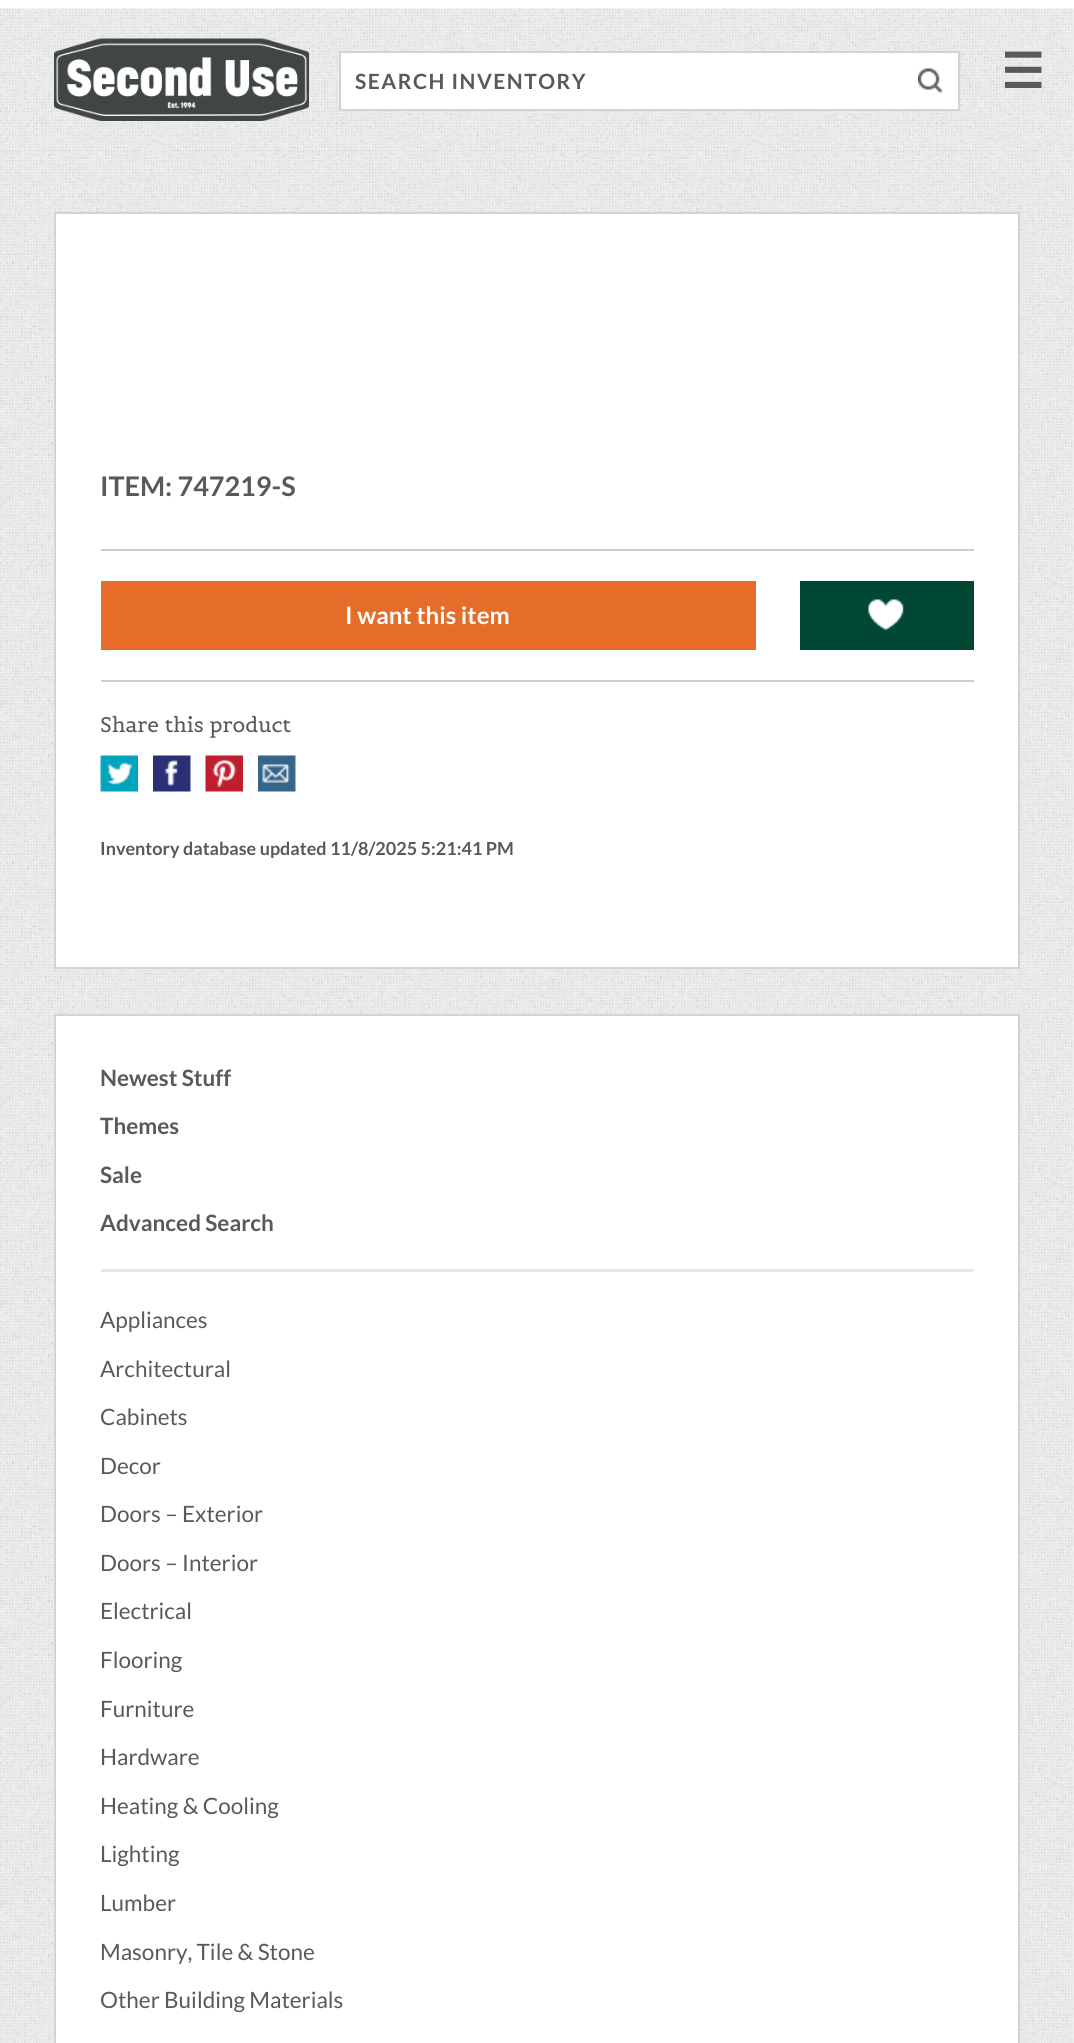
#include <cairo.h>
#include <math.h>
#include <stddef.h>

static cairo_t *ctx;

static void use_color(int r, int g, int b) {
    cairo_set_source_rgb(ctx, r / 255.0, g / 255.0, b / 255.0);
}

static void spaced_text(double x, double y, const char *s, double letter, double word) {
    cairo_move_to(ctx, x, y);
    while (*s) {
        char ch[5] = {0};
        int n = 0;
        do ch[n++] = *s++; while ((*s & 0xC0) == 0x80);
        cairo_show_text(ctx, ch);
        cairo_rel_move_to(ctx, letter + word * (*ch == ' '), 0);
    }
}

static void picture(const char *path, double x, double y, double w, double h) {
    cairo_surface_t *image = cairo_image_surface_create_from_png(path);
    cairo_save(ctx);
    cairo_set_source_surface(ctx, image, x, y);
    cairo_rectangle(ctx, x, y, w, h);
    cairo_fill(ctx);
    cairo_restore(ctx);
    cairo_surface_destroy(image);
}

int main(void) {
    cairo_surface_t *surface = cairo_image_surface_create(CAIRO_FORMAT_RGB24, 1074, 2043);
    ctx = cairo_create(surface);
    cairo_font_options_t *options = cairo_font_options_create();
    cairo_font_options_set_hint_metrics(options, CAIRO_HINT_METRICS_OFF);
    cairo_font_options_set_hint_style(options, CAIRO_HINT_STYLE_NONE);
    cairo_set_font_options(ctx, options);
    cairo_set_miter_limit(ctx, 4);
    use_color(255, 255, 255);
    cairo_paint(ctx);
    picture("img1.png", 0, 8, 1074, 143);
    picture("img2.png", 54, 38, 255, 83);
    use_color(255, 255, 255);
    cairo_rectangle(ctx, 340, 52, 619, 58);
    cairo_fill_preserve(ctx);
    use_color(211, 211, 211);
    cairo_stroke(ctx);
    cairo_select_font_face(ctx, "Lato", CAIRO_FONT_SLANT_NORMAL, CAIRO_FONT_WEIGHT_BOLD);
    cairo_set_font_size(ctx, 21);
    use_color(88, 89, 91);
    spaced_text(355, 89, "SEARCH INVENTORY", 1.5, 0);
    picture("img3.png", 918, 68, 24, 25);
    cairo_select_font_face(ctx, "DejaVu Sans", CAIRO_FONT_SLANT_NORMAL, CAIRO_FONT_WEIGHT_BOLD);
    cairo_set_font_size(ctx, 48);
    cairo_move_to(ctx, 1001, 88);
    cairo_show_text(ctx, "☰");
    picture("img4.png", 0, 151, 1074, 1892);
    use_color(255, 255, 255);
    cairo_rectangle(ctx, 55, 213, 964, 755);
    cairo_fill_preserve(ctx);
    use_color(211, 211, 211);
    cairo_stroke(ctx);
    cairo_select_font_face(ctx, "Lato", CAIRO_FONT_SLANT_NORMAL, CAIRO_FONT_WEIGHT_BOLD);
    cairo_set_font_size(ctx, 27);
    use_color(88, 89, 91);
    cairo_move_to(ctx, 100, 496);
    cairo_show_text(ctx, "ITEM: 747219-S");
    use_color(205, 206, 208);
    cairo_rectangle(ctx, 101, 549, 873, 2);
    cairo_fill(ctx);
    cairo_rectangle(ctx, 101, 680, 873, 2);
    cairo_fill(ctx);
    use_color(230, 108, 41);
    cairo_rectangle(ctx, 101, 581, 655, 69);
    cairo_fill(ctx);
    cairo_set_font_size(ctx, 24);
    use_color(255, 255, 255);
    cairo_move_to(ctx, 345, 624);
    cairo_show_text(ctx, "I want this item");
    use_color(0, 72, 52);
    cairo_rectangle(ctx, 800, 581, 174, 69);
    cairo_fill(ctx);
    picture("img5.png", 868, 599, 36, 31);
    cairo_select_font_face(ctx, "Belgrano", CAIRO_FONT_SLANT_NORMAL, CAIRO_FONT_WEIGHT_NORMAL);
    cairo_set_font_size(ctx, 21);
    use_color(88, 89, 91);
    cairo_move_to(ctx, 100, 732);
    cairo_show_text(ctx, "Share this product");
    picture("img6.png", 100, 755, 38, 37);
    picture("img7.png", 153, 755, 38, 37);
    picture("img8.png", 205, 755, 38, 37);
    picture("img9.png", 258, 755, 38, 37);
    cairo_select_font_face(ctx, "Lato", CAIRO_FONT_SLANT_NORMAL, CAIRO_FONT_WEIGHT_BOLD);
    cairo_set_font_size(ctx, 18);
    cairo_move_to(ctx, 100, 855);
    cairo_show_text(ctx, "Inventory database updated 11/8/2025 5:21:41 PM");
    use_color(255, 255, 255);
    cairo_rectangle(ctx, 55, 1015, 964, 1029);
    cairo_fill_preserve(ctx);
    use_color(211, 211, 211);
    cairo_stroke(ctx);
    use_color(229, 230, 230);
    cairo_rectangle(ctx, 101, 1269, 873, 3);
    cairo_fill(ctx);
    cairo_set_font_size(ctx, 22.5);
    use_color(88, 89, 91);
    cairo_move_to(ctx, 100, 1086);
    cairo_show_text(ctx, "Newest Stuff");
    cairo_move_to(ctx, 100, 1134);
    cairo_show_text(ctx, "Themes");
    cairo_move_to(ctx, 100, 1183);
    cairo_show_text(ctx, "Sale");
    cairo_move_to(ctx, 100, 1231);
    cairo_show_text(ctx, "Advanced Search");
    cairo_select_font_face(ctx, "Lato", CAIRO_FONT_SLANT_NORMAL, CAIRO_FONT_WEIGHT_NORMAL);
    cairo_move_to(ctx, 100, 1328);
    cairo_show_text(ctx, "Appliances");
    cairo_move_to(ctx, 100, 1377);
    cairo_show_text(ctx, "Architectural");
    cairo_move_to(ctx, 100, 1425);
    cairo_show_text(ctx, "Cabinets");
    cairo_move_to(ctx, 100, 1474);
    cairo_show_text(ctx, "Decor");
    cairo_move_to(ctx, 100, 1522);
    cairo_show_text(ctx, "Doors – Exterior");
    cairo_move_to(ctx, 100, 1571);
    cairo_show_text(ctx, "Doors – Interior");
    cairo_move_to(ctx, 100, 1619);
    cairo_show_text(ctx, "Electrical");
    cairo_move_to(ctx, 100, 1668);
    cairo_show_text(ctx, "Flooring");
    cairo_move_to(ctx, 100, 1717);
    cairo_show_text(ctx, "Furniture");
    cairo_move_to(ctx, 100, 1765);
    cairo_show_text(ctx, "Hardware");
    cairo_move_to(ctx, 100, 1814);
    cairo_show_text(ctx, "Heating & Cooling");
    cairo_move_to(ctx, 100, 1862);
    cairo_show_text(ctx, "Lighting");
    cairo_move_to(ctx, 100, 1911);
    cairo_show_text(ctx, "Lumber");
    cairo_move_to(ctx, 100, 1960);
    cairo_show_text(ctx, "Masonry, Tile & Stone");
    cairo_move_to(ctx, 100, 2008);
    cairo_show_text(ctx, "Other Building Materials");
    cairo_surface_write_to_png(surface, "result.png");
    cairo_font_options_destroy(options);
    cairo_destroy(ctx);
    cairo_surface_destroy(surface);
    return 0;
}
